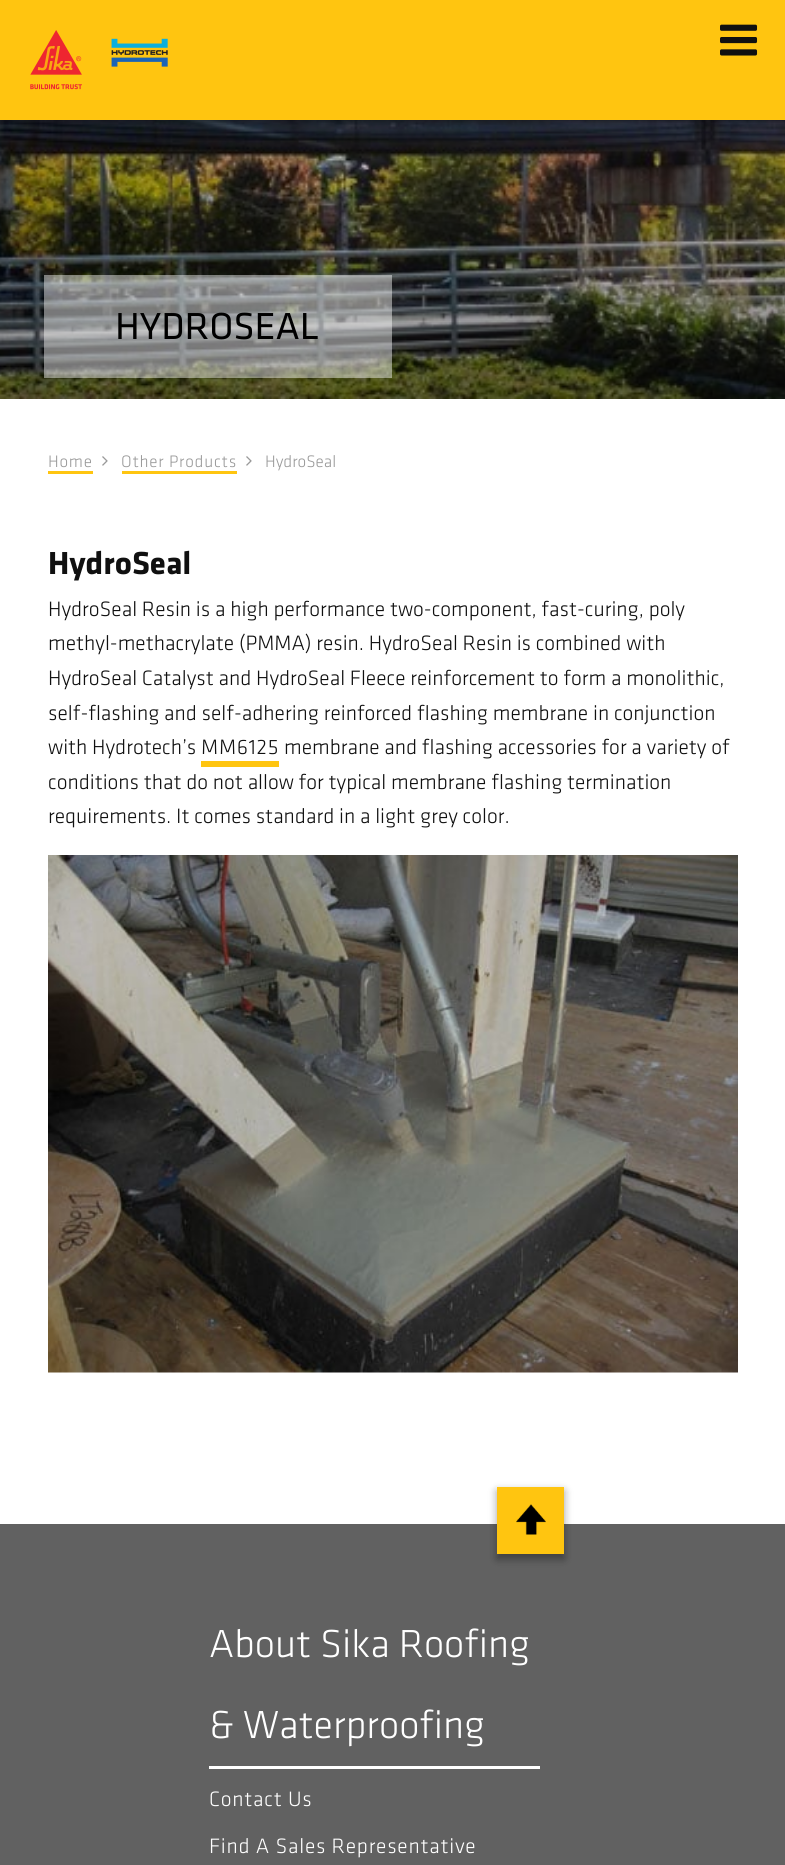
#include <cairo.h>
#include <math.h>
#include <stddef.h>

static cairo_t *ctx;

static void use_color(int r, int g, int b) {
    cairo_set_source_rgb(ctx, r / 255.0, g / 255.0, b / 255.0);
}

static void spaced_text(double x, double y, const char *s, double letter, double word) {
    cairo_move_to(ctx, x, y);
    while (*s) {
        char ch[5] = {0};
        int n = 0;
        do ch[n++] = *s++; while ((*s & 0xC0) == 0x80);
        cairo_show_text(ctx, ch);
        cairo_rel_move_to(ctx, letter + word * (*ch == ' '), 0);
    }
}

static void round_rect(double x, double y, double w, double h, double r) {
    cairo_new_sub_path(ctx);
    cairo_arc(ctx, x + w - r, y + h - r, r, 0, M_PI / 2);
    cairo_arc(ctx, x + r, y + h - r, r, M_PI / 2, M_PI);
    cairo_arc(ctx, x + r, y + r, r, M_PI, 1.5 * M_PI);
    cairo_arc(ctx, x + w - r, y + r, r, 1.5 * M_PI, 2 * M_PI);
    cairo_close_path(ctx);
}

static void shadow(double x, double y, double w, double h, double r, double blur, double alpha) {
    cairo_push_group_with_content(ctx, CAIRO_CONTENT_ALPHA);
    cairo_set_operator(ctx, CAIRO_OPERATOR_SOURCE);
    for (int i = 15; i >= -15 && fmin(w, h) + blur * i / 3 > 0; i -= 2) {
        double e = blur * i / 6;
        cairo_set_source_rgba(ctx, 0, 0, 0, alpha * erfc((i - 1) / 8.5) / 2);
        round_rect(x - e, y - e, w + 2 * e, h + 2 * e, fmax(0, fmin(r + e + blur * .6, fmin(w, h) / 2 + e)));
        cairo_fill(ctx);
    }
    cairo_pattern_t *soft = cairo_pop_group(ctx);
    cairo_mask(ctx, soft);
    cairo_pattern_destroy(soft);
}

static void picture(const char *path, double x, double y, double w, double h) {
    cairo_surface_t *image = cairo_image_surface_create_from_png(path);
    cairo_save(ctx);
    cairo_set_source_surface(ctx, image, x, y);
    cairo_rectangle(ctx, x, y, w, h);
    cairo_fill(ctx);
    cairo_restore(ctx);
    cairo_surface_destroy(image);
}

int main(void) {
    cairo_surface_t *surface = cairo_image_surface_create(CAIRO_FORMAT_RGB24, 785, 1865);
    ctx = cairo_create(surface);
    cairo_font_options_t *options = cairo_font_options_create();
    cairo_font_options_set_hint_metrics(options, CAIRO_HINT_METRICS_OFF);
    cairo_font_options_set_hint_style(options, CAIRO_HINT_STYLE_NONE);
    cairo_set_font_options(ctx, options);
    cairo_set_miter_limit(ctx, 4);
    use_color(255, 255, 255);
    cairo_paint(ctx);
    picture("img3.png", 0, 120, 785, 279);
    use_color(0, 0, 0);
    shadow(0, 3, 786, 120, 0, 4, 0.3);
    use_color(255, 197, 16);
    cairo_rectangle(ctx, 0, 0, 785, 120);
    cairo_fill(ctx);
    picture("img1.png", 30, 30, 138, 60);
    picture("img2.png", 720, 24, 38, 32);
    cairo_set_source_rgba(ctx, 1, 1, 1, 0.45);
    cairo_rectangle(ctx, 44, 275, 348, 103);
    cairo_fill(ctx);
    cairo_select_font_face(ctx, "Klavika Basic", CAIRO_FONT_SLANT_NORMAL, CAIRO_FONT_WEIGHT_NORMAL);
    cairo_set_font_size(ctx, 39);
    use_color(0, 0, 0);
    cairo_move_to(ctx, 115, 339);
    cairo_show_text(ctx, "HYDROSEAL");
    cairo_select_font_face(ctx, "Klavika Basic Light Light", CAIRO_FONT_SLANT_NORMAL, CAIRO_FONT_WEIGHT_NORMAL);
    cairo_set_font_size(ctx, 17.25);
    use_color(153, 153, 153);
    spaced_text(48, 467, "Home", 0.75, 0);
    use_color(255, 197, 16);
    cairo_rectangle(ctx, 48, 471, 45, 3);
    cairo_fill(ctx);
    picture("img4.png", 102, 456, 6, 10);
    use_color(153, 153, 153);
    spaced_text(121, 467, "Other Products", 0.75, 0);
    use_color(255, 197, 16);
    cairo_rectangle(ctx, 122, 471, 115, 3);
    cairo_fill(ctx);
    picture("img4.png", 246, 456, 6, 10);
    use_color(153, 153, 153);
    cairo_move_to(ctx, 265, 467);
    cairo_show_text(ctx, "HydroSeal");
    cairo_select_font_face(ctx, "Klavika Basic", CAIRO_FONT_SLANT_NORMAL, CAIRO_FONT_WEIGHT_BOLD);
    cairo_set_font_size(ctx, 33);
    use_color(16, 16, 16);
    cairo_move_to(ctx, 48, 574);
    cairo_show_text(ctx, "HydroSeal");
    cairo_select_font_face(ctx, "Klavika Basic Light Light", CAIRO_FONT_SLANT_NORMAL, CAIRO_FONT_WEIGHT_NORMAL);
    cairo_set_font_size(ctx, 21.6);
    cairo_move_to(ctx, 48, 616);
    cairo_show_text(ctx, "HydroSeal Resin is a high performance two-component, fast-curing, poly");
    cairo_move_to(ctx, 48, 650);
    cairo_show_text(ctx, "methyl-methacrylate (PMMA) resin. HydroSeal Resin is combined with");
    cairo_move_to(ctx, 48, 685);
    cairo_show_text(ctx, "HydroSeal Catalyst and HydroSeal Fleece reinforcement to form a monolithic,");
    cairo_move_to(ctx, 48, 720);
    cairo_show_text(ctx, "self-flashing and self-adhering reinforced flashing membrane in conjunction");
    cairo_move_to(ctx, 48, 754);
    cairo_show_text(ctx, "with Hydrotech’s");
    spaced_text(201, 754, "MM6125", 0.75, 0);
    use_color(255, 197, 16);
    cairo_rectangle(ctx, 201, 761, 78, 6);
    cairo_fill(ctx);
    use_color(16, 16, 16);
    cairo_move_to(ctx, 284, 754);
    cairo_show_text(ctx, "membrane and flashing accessories for a variety of");
    cairo_move_to(ctx, 48, 789);
    cairo_show_text(ctx, "conditions that do not allow for typical membrane flashing termination");
    cairo_move_to(ctx, 48, 823);
    cairo_show_text(ctx, "requirements. It comes standard in a light grey color.");
    picture("img5.png", 48, 855, 690, 518);
    use_color(97, 97, 97);
    cairo_rectangle(ctx, 0, 1524, 785, 341);
    cairo_fill(ctx);
    use_color(0, 0, 0);
    shadow(497, 1491, 67, 68, 0, 4.5, 0.23);
    shadow(497, 1491, 67, 68, 0, 4.5, 0.16);
    use_color(255, 197, 16);
    cairo_rectangle(ctx, 497, 1487, 67, 67);
    cairo_fill(ctx);
    picture("img6.png", 516, 1504, 30, 31);
    use_color(255, 255, 255);
    cairo_rectangle(ctx, 209, 1766, 331, 3);
    cairo_fill(ctx);
    cairo_set_font_size(ctx, 40.5);
    cairo_move_to(ctx, 209, 1657);
    cairo_show_text(ctx, "About Sika Roofing");
    cairo_move_to(ctx, 209, 1738);
    cairo_show_text(ctx, "& Waterproofing");
    cairo_set_font_size(ctx, 21.6);
    spaced_text(209, 1806, "Contact Us", 0.75, 0);
    spaced_text(209, 1853, "Find A Sales Representative", 0.75, 0);
    cairo_surface_write_to_png(surface, "result.png");
    cairo_font_options_destroy(options);
    cairo_destroy(ctx);
    cairo_surface_destroy(surface);
    return 0;
}
